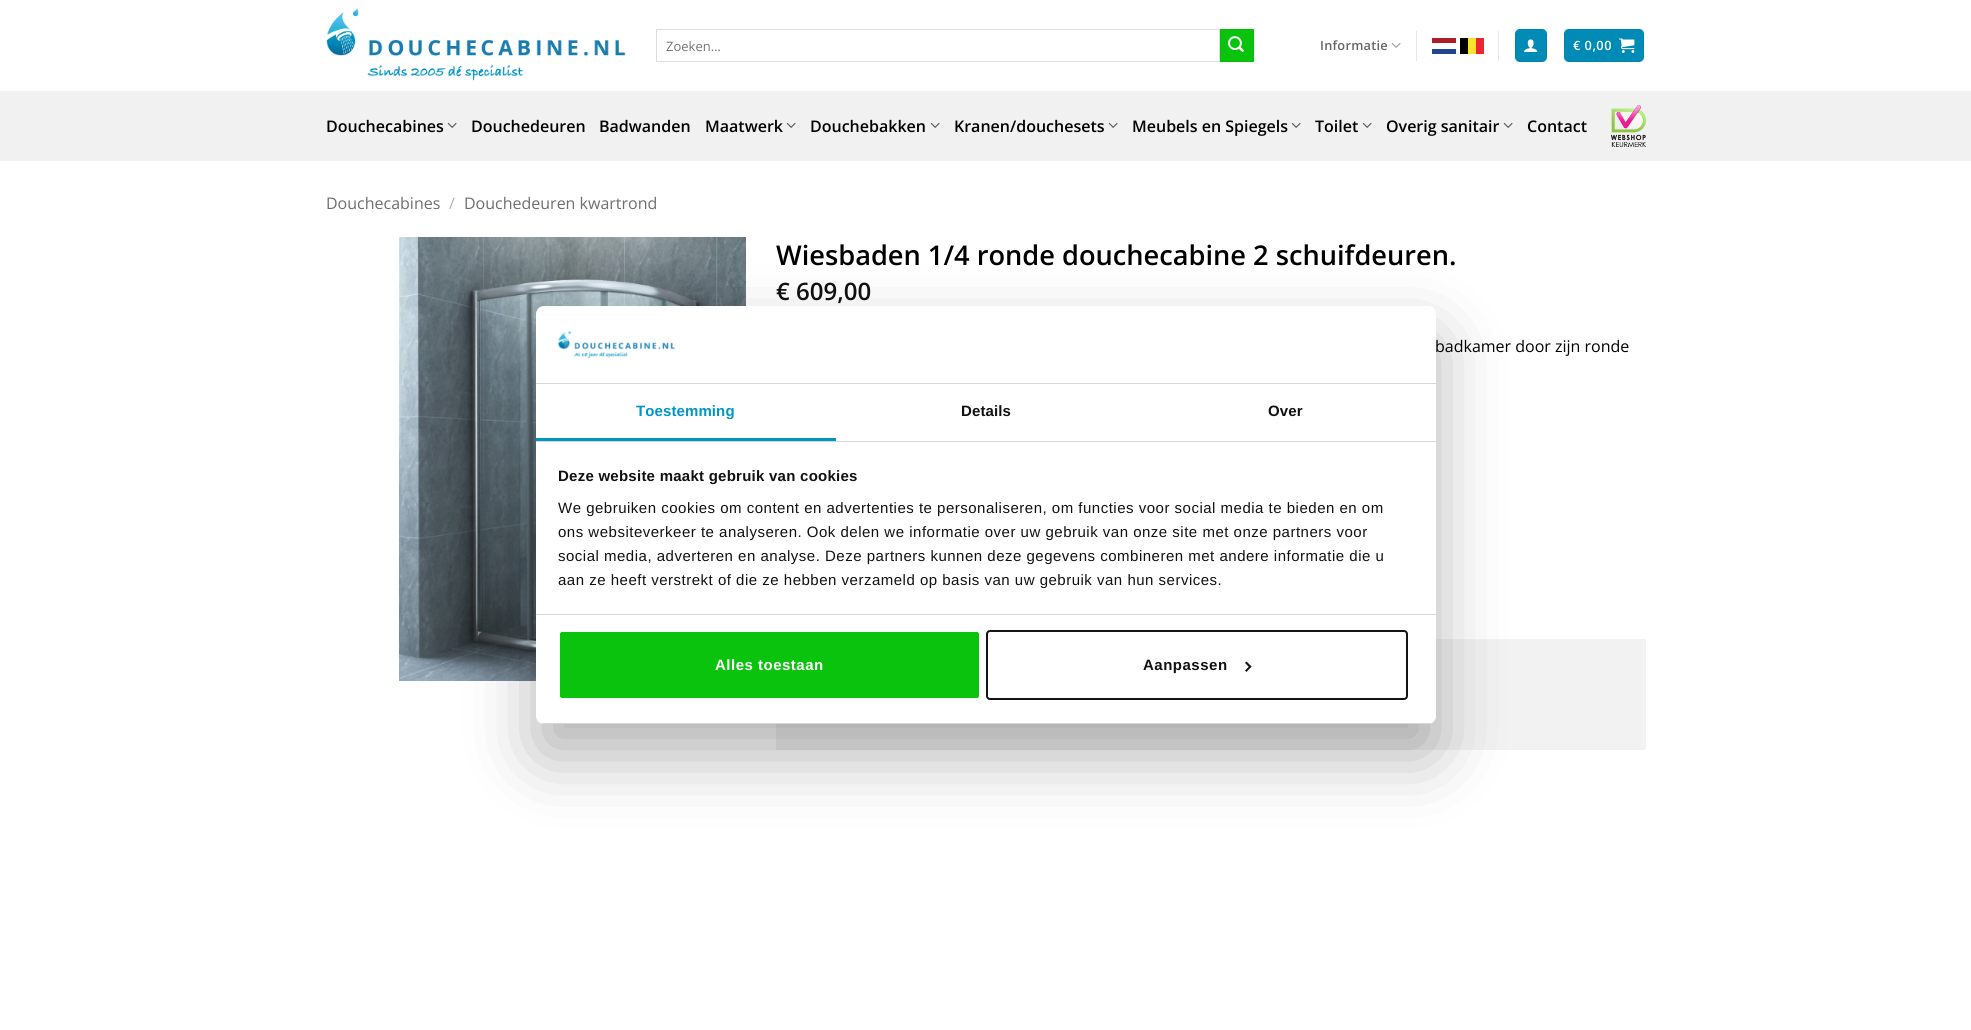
#include <cairo.h>
#include <math.h>
#include <stddef.h>

static cairo_t *ctx;

static void use_color(int r, int g, int b) {
    cairo_set_source_rgb(ctx, r / 255.0, g / 255.0, b / 255.0);
}

static void spaced_text(double x, double y, const char *s, double letter, double word) {
    cairo_move_to(ctx, x, y);
    while (*s) {
        char ch[5] = {0};
        int n = 0;
        do ch[n++] = *s++; while ((*s & 0xC0) == 0x80);
        cairo_show_text(ctx, ch);
        cairo_rel_move_to(ctx, letter + word * (*ch == ' '), 0);
    }
}

static void round_rect(double x, double y, double w, double h, double r) {
    cairo_new_sub_path(ctx);
    cairo_arc(ctx, x + w - r, y + h - r, r, 0, M_PI / 2);
    cairo_arc(ctx, x + r, y + h - r, r, M_PI / 2, M_PI);
    cairo_arc(ctx, x + r, y + r, r, M_PI, 1.5 * M_PI);
    cairo_arc(ctx, x + w - r, y + r, r, 1.5 * M_PI, 2 * M_PI);
    cairo_close_path(ctx);
}

static void shadow(double x, double y, double w, double h, double r, double blur, double alpha) {
    cairo_push_group_with_content(ctx, CAIRO_CONTENT_ALPHA);
    cairo_set_operator(ctx, CAIRO_OPERATOR_SOURCE);
    for (int i = 15; i >= -15 && fmin(w, h) + blur * i / 3 > 0; i -= 2) {
        double e = blur * i / 6;
        cairo_set_source_rgba(ctx, 0, 0, 0, alpha * erfc((i - 1) / 8.5) / 2);
        round_rect(x - e, y - e, w + 2 * e, h + 2 * e, fmax(0, fmin(r + e + blur * .6, fmin(w, h) / 2 + e)));
        cairo_fill(ctx);
    }
    cairo_pattern_t *soft = cairo_pop_group(ctx);
    cairo_mask(ctx, soft);
    cairo_pattern_destroy(soft);
}

static void picture(const char *path, double x, double y, double w, double h) {
    cairo_surface_t *image = cairo_image_surface_create_from_png(path);
    cairo_save(ctx);
    cairo_set_source_surface(ctx, image, x, y);
    cairo_rectangle(ctx, x, y, w, h);
    cairo_fill(ctx);
    cairo_restore(ctx);
    cairo_surface_destroy(image);
}

int main(void) {
    cairo_surface_t *surface = cairo_image_surface_create(CAIRO_FORMAT_RGB24, 1971, 1030);
    ctx = cairo_create(surface);
    cairo_font_options_t *options = cairo_font_options_create();
    cairo_font_options_set_hint_metrics(options, CAIRO_HINT_METRICS_OFF);
    cairo_font_options_set_hint_style(options, CAIRO_HINT_STYLE_NONE);
    cairo_set_font_options(ctx, options);
    cairo_set_miter_limit(ctx, 4);
    use_color(255, 255, 255);
    cairo_paint(ctx);
    picture("img1.png", 326, 8, 300, 73);
    cairo_rectangle(ctx, 656.5, 29.5, 563, 32);
    use_color(221, 221, 221);
    cairo_set_line_width(ctx, 1);
    cairo_stroke(ctx);
    cairo_select_font_face(ctx, "Open Sans", CAIRO_FONT_SLANT_NORMAL, CAIRO_FONT_WEIGHT_NORMAL);
    cairo_set_font_size(ctx, 13);
    use_color(117, 117, 117);
    cairo_move_to(ctx, 666, 51);
    cairo_show_text(ctx, "Zoeken…");
    use_color(10, 195, 13);
    cairo_rectangle(ctx, 1220.5, 29.5, 33, 32);
    cairo_fill_preserve(ctx);
    use_color(10, 185, 12);
    cairo_stroke(ctx);
    picture("img2.png", 1228, 36, 16, 16);
    cairo_select_font_face(ctx, "Open Sans SemiBold", CAIRO_FONT_SLANT_NORMAL, CAIRO_FONT_WEIGHT_NORMAL);
    cairo_set_font_size(ctx, 12.75);
    use_color(101, 101, 101);
    spaced_text(1320, 50, "Informatie", 0.25, 0);
    picture("img3.png", 1391, 42, 10, 6);
    use_color(230, 230, 230);
    cairo_rectangle(ctx, 1416, 31, 1, 30);
    cairo_fill(ctx);
    picture("img4.png", 1432, 38, 24, 16);
    picture("img5.png", 1460, 38, 24, 16);
    cairo_rectangle(ctx, 1498, 31, 1, 30);
    cairo_fill(ctx);
    use_color(0, 138, 182);
    round_rect(1515, 29, 32, 33, 5);
    cairo_fill(ctx);
    cairo_rectangle(ctx, 1515.5, 29.5, 31, 32);
    cairo_set_source_rgba(ctx, 0, 0, 0, 0.05);
    cairo_stroke(ctx);
    picture("img6.png", 1524, 39, 14, 13);
    use_color(0, 138, 182);
    round_rect(1564, 29, 80, 33, 5);
    cairo_fill(ctx);
    cairo_rectangle(ctx, 1564.5, 29.5, 79, 32);
    cairo_set_source_rgba(ctx, 0, 0, 0, 0.05);
    cairo_stroke(ctx);
    use_color(255, 255, 255);
    spaced_text(1573, 50, "€ 0,00", 0.5, 0);
    picture("img7.png", 1619, 38, 16, 15);
    use_color(241, 241, 241);
    cairo_rectangle(ctx, 0, 91, 1971, 70);
    cairo_fill(ctx);
    cairo_set_font_size(ctx, 16);
    use_color(0, 0, 0);
    cairo_move_to(ctx, 326, 132);
    cairo_show_text(ctx, "Douchecabines");
    picture("img8.png", 447, 122, 10, 6);
    cairo_move_to(ctx, 471, 132);
    cairo_show_text(ctx, "Douchedeuren");
    cairo_move_to(ctx, 599, 132);
    cairo_show_text(ctx, "Badwanden");
    cairo_move_to(ctx, 705, 132);
    cairo_show_text(ctx, "Maatwerk");
    picture("img8.png", 786, 122, 10, 6);
    cairo_move_to(ctx, 810, 132);
    cairo_show_text(ctx, "Douchebakken");
    picture("img8.png", 930, 122, 10, 6);
    cairo_move_to(ctx, 954, 132);
    cairo_show_text(ctx, "Kranen/douchesets");
    picture("img8.png", 1108, 122, 10, 6);
    cairo_move_to(ctx, 1132, 132);
    cairo_show_text(ctx, "Meubels en Spiegels");
    picture("img8.png", 1291, 122, 10, 6);
    cairo_move_to(ctx, 1315, 132);
    cairo_show_text(ctx, "Toilet");
    picture("img8.png", 1362, 122, 10, 6);
    cairo_move_to(ctx, 1386, 132);
    cairo_show_text(ctx, "Overig sanitair");
    picture("img8.png", 1503, 122, 10, 6);
    cairo_move_to(ctx, 1527, 132);
    cairo_show_text(ctx, "Contact");
    picture("img9.png", 1611, 105, 35, 42);
    cairo_select_font_face(ctx, "Open Sans", CAIRO_FONT_SLANT_NORMAL, CAIRO_FONT_WEIGHT_NORMAL);
    use_color(110, 110, 110);
    cairo_move_to(ctx, 326, 209);
    cairo_show_text(ctx, "Douchecabines");
    use_color(178, 178, 178);
    cairo_move_to(ctx, 449, 209);
    cairo_show_text(ctx, "/");
    use_color(110, 110, 110);
    cairo_move_to(ctx, 464, 209);
    cairo_show_text(ctx, "Douchedeuren kwartrond");
    picture("img10.png", 399, 237, 347, 444);
    cairo_select_font_face(ctx, "Open Sans SemiBold", CAIRO_FONT_SLANT_NORMAL, CAIRO_FONT_WEIGHT_NORMAL);
    cairo_set_font_size(ctx, 27.2);
    use_color(0, 0, 0);
    cairo_move_to(ctx, 776, 265);
    cairo_show_text(ctx, "Wiesbaden 1/4 ronde douchecabine 2 schuifdeuren.");
    cairo_set_font_size(ctx, 24);
    use_color(17, 17, 17);
    cairo_move_to(ctx, 776, 300);
    cairo_show_text(ctx, "€ 609,00");
    cairo_select_font_face(ctx, "Open Sans", CAIRO_FONT_SLANT_NORMAL, CAIRO_FONT_WEIGHT_NORMAL);
    cairo_set_font_size(ctx, 16);
    use_color(0, 0, 0);
    cairo_move_to(ctx, 1435, 352);
    cairo_show_text(ctx, "badkamer door zijn ronde");
    use_color(242, 242, 242);
    cairo_rectangle(ctx, 776, 639, 870, 111);
    cairo_fill(ctx);
    use_color(0, 0, 0);
    shadow(536, 338, 900, 418, 8, 34, 0.3);
    use_color(255, 255, 255);
    round_rect(536, 306, 900, 418, 8);
    cairo_fill(ctx);
    use_color(214, 214, 214);
    cairo_rectangle(ctx, 536, 383, 900, 1);
    cairo_fill(ctx);
    picture("img11.png", 558, 330, 118, 29);
    cairo_rectangle(ctx, 536, 441, 900, 1);
    cairo_fill(ctx);
    use_color(0, 149, 195);
    cairo_rectangle(ctx, 536, 438, 300, 3);
    cairo_fill(ctx);
    cairo_select_font_face(ctx, "Liberation Sans", CAIRO_FONT_SLANT_NORMAL, CAIRO_FONT_WEIGHT_BOLD);
    cairo_set_font_size(ctx, 15);
    spaced_text(636, 416, "Toestemming", 0.1, 0);
    use_color(17, 17, 17);
    spaced_text(961, 416, "Details", 0.1, 0);
    spaced_text(1268, 416, "Over", 0.1, 0);
    use_color(214, 214, 214);
    cairo_rectangle(ctx, 536, 614, 900, 1);
    cairo_fill(ctx);
    use_color(17, 17, 17);
    spaced_text(558, 481, "Deze website maakt gebruik van cookies", 0.25, 0);
    cairo_select_font_face(ctx, "Liberation Sans", CAIRO_FONT_SLANT_NORMAL, CAIRO_FONT_WEIGHT_NORMAL);
    spaced_text(558, 513, "We gebruiken cookies om content en advertenties te personaliseren, om functies voor social media te bieden en om", 0.5, 0);
    spaced_text(558, 537, "ons websiteverkeer te analyseren. Ook delen we informatie over uw gebruik van onze site met onze partners voor", 0.5, 0);
    spaced_text(558, 561, "social media, adverteren en analyse. Deze partners kunnen deze gegevens combineren met andere informatie die u", 0.5, 0);
    spaced_text(558, 585, "aan ze heeft verstrekt of die ze hebben verzameld op basis van uw gebruik van hun services.", 0.5, 0);
    cairo_save(ctx);
    round_rect(536, 306, 900, 418, 8);
    cairo_clip(ctx);
    use_color(214, 214, 214);
    cairo_rectangle(ctx, 536, 723, 900, 1);
    cairo_fill(ctx);
    cairo_restore(ctx);
    use_color(10, 195, 13);
    round_rect(559, 631, 421, 68, 3);
    cairo_fill_preserve(ctx);
    use_color(255, 255, 255);
    cairo_set_line_width(ctx, 2);
    cairo_stroke(ctx);
    cairo_select_font_face(ctx, "Liberation Sans", CAIRO_FONT_SLANT_NORMAL, CAIRO_FONT_WEIGHT_BOLD);
    spaced_text(715, 670, "Alles toestaan", 0.5, 0);
    round_rect(987, 631, 420, 68, 3);
    use_color(20, 20, 20);
    cairo_stroke(ctx);
    use_color(17, 17, 17);
    spaced_text(1143, 670, "Aanpassen", 0.5, 0);
    use_color(20, 20, 20);
    cairo_new_path(ctx);
    cairo_move_to(ctx, 1246.5, 661.5);
    cairo_line_to(ctx, 1251.5, 666.5);
    cairo_line_to(ctx, 1250, 668);
    cairo_line_to(ctx, 1245, 663);
    cairo_close_path(ctx);
    cairo_fill(ctx);
    cairo_new_path(ctx);
    cairo_move_to(ctx, 1250, 665.5);
    cairo_line_to(ctx, 1251.5, 666.5);
    cairo_line_to(ctx, 1246.5, 672);
    cairo_line_to(ctx, 1245, 670.5);
    cairo_close_path(ctx);
    cairo_fill(ctx);
    cairo_surface_write_to_png(surface, "result.png");
    cairo_font_options_destroy(options);
    cairo_destroy(ctx);
    cairo_surface_destroy(surface);
    return 0;
}
